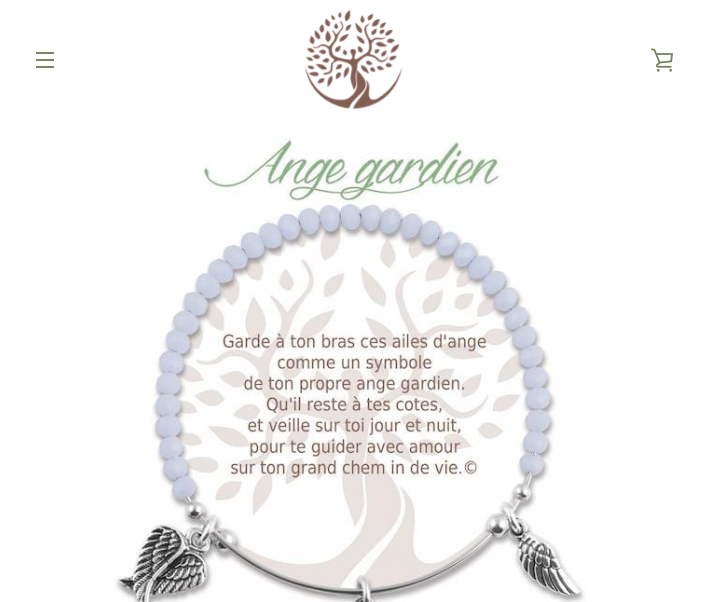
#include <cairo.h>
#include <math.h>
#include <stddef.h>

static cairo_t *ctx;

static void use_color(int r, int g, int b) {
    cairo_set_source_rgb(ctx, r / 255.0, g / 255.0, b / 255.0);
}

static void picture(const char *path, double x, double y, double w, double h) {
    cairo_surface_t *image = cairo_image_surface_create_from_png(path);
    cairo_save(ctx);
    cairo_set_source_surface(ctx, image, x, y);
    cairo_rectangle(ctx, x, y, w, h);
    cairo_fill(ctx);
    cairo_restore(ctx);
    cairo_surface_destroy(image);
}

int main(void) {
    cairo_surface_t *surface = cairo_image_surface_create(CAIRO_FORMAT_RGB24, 708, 602);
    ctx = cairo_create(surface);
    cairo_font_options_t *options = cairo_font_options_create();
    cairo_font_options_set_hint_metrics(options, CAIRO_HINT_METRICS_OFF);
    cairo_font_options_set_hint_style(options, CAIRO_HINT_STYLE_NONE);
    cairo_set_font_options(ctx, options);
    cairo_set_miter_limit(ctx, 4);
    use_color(255, 255, 255);
    cairo_paint(ctx);
    use_color(117, 133, 96);
    cairo_rectangle(ctx, 36, 52, 18, 2);
    cairo_fill(ctx);
    cairo_rectangle(ctx, 36, 59, 18, 2);
    cairo_fill(ctx);
    cairo_rectangle(ctx, 36, 66, 18, 2);
    cairo_fill(ctx);
    picture("img1.png", 304, 10, 99, 100);
    picture("img2.png", 651, 48, 22, 24);
    picture("img3.png", 113, 135, 473, 467);
    cairo_surface_write_to_png(surface, "result.png");
    cairo_font_options_destroy(options);
    cairo_destroy(ctx);
    cairo_surface_destroy(surface);
    return 0;
}
